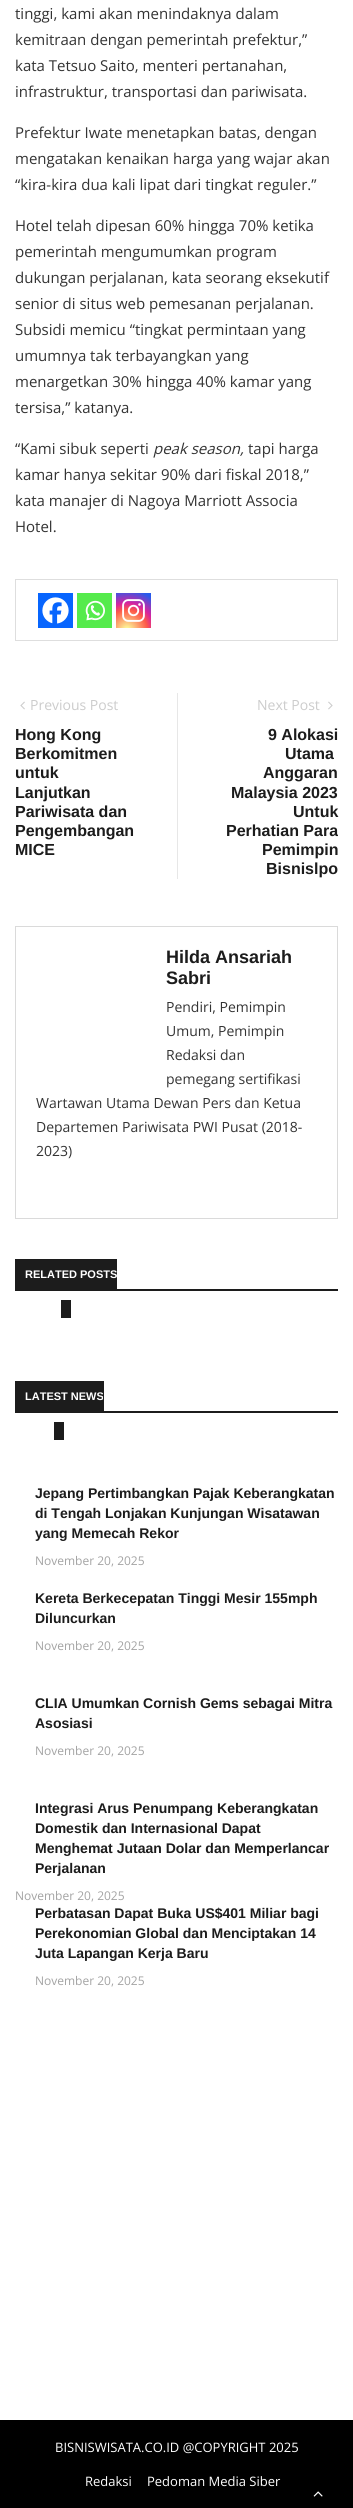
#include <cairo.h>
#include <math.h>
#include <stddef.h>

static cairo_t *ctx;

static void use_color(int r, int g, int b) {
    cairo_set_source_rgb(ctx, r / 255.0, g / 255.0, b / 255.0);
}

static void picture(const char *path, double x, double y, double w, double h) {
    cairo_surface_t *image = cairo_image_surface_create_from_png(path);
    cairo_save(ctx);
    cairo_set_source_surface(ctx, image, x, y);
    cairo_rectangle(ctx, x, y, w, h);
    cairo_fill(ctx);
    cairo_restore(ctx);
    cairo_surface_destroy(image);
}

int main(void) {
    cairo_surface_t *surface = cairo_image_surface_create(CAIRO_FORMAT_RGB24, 353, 2508);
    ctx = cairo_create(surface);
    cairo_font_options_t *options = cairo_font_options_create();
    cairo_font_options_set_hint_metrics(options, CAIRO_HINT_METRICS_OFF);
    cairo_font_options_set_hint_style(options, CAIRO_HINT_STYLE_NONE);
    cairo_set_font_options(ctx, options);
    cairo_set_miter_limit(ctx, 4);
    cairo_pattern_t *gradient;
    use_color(255, 255, 255);
    cairo_paint(ctx);
    cairo_select_font_face(ctx, "Open Sans", CAIRO_FONT_SLANT_NORMAL, CAIRO_FONT_WEIGHT_NORMAL);
    cairo_set_font_size(ctx, 15);
    use_color(51, 51, 51);
    cairo_move_to(ctx, 15, 19);
    cairo_show_text(ctx, "tinggi, kami akan menindaknya dalam");
    cairo_move_to(ctx, 15, 45);
    cairo_show_text(ctx, "kemitraan dengan pemerintah prefektur,”");
    cairo_move_to(ctx, 15, 71);
    cairo_show_text(ctx, "kata Tetsuo Saito, menteri pertanahan,");
    cairo_move_to(ctx, 15, 97);
    cairo_show_text(ctx, "infrastruktur, transportasi dan pariwisata.");
    cairo_move_to(ctx, 15, 138);
    cairo_show_text(ctx, "Prefektur Iwate menetapkan batas, dengan");
    cairo_move_to(ctx, 15, 164);
    cairo_show_text(ctx, "mengatakan kenaikan harga yang wajar akan");
    cairo_move_to(ctx, 15, 190);
    cairo_show_text(ctx, "“kira-kira dua kali lipat dari tingkat reguler.”");
    cairo_move_to(ctx, 15, 231);
    cairo_show_text(ctx, "Hotel telah dipesan 60% hingga 70% ketika");
    cairo_move_to(ctx, 15, 257);
    cairo_show_text(ctx, "pemerintah mengumumkan program");
    cairo_move_to(ctx, 15, 283);
    cairo_show_text(ctx, "dukungan perjalanan, kata seorang eksekutif");
    cairo_move_to(ctx, 15, 309);
    cairo_show_text(ctx, "senior di situs web pemesanan perjalanan.");
    cairo_move_to(ctx, 15, 335);
    cairo_show_text(ctx, "Subsidi memicu “tingkat permintaan yang");
    cairo_move_to(ctx, 15, 361);
    cairo_show_text(ctx, "umumnya tak terbayangkan yang");
    cairo_move_to(ctx, 15, 387);
    cairo_show_text(ctx, "menargetkan 30% hingga 40% kamar yang");
    cairo_move_to(ctx, 15, 413);
    cairo_show_text(ctx, "tersisa,” katanya.");
    cairo_move_to(ctx, 15, 454);
    cairo_show_text(ctx, "“Kami sibuk seperti");
    cairo_select_font_face(ctx, "Open Sans", CAIRO_FONT_SLANT_ITALIC, CAIRO_FONT_WEIGHT_NORMAL);
    cairo_move_to(ctx, 153, 454);
    cairo_show_text(ctx, "peak season,");
    cairo_select_font_face(ctx, "Open Sans", CAIRO_FONT_SLANT_NORMAL, CAIRO_FONT_WEIGHT_NORMAL);
    cairo_move_to(ctx, 248, 454);
    cairo_show_text(ctx, "tapi harga");
    cairo_move_to(ctx, 15, 480);
    cairo_show_text(ctx, "kamar hanya sekitar 90% dari fiskal 2018,”");
    cairo_move_to(ctx, 15, 506);
    cairo_show_text(ctx, "kata manajer di Nagoya Marriott Associa");
    cairo_move_to(ctx, 15, 532);
    cairo_show_text(ctx, "Hotel.");
    cairo_rectangle(ctx, 15.5, 579.5, 322, 61);
    use_color(222, 222, 222);
    cairo_set_line_width(ctx, 1);
    cairo_stroke(ctx);
    use_color(7, 101, 254);
    cairo_rectangle(ctx, 38, 593, 35, 35);
    cairo_fill(ctx);
    picture("img1.png", 42, 597, 27, 27);
    use_color(85, 235, 76);
    cairo_rectangle(ctx, 77, 593, 35, 35);
    cairo_fill(ctx);
    picture("img2.png", 85, 600, 20, 21);
    gradient = cairo_pattern_create_radial(127, 630, 0, 127, 630, 45);
    cairo_pattern_add_color_stop_rgba(gradient, 0, 0.992, 0.957, 0.592, 1);
    cairo_pattern_add_color_stop_rgba(gradient, 0.05, 0.992, 0.957, 0.592, 1);
    cairo_pattern_add_color_stop_rgba(gradient, 0.45, 0.992, 0.349, 0.286, 1);
    cairo_pattern_add_color_stop_rgba(gradient, 0.6, 0.839, 0.141, 0.624, 1);
    cairo_pattern_add_color_stop_rgba(gradient, 0.9, 0.157, 0.353, 0.922, 1);
    cairo_set_source(ctx, gradient);
    cairo_pattern_destroy(gradient);
    cairo_rectangle(ctx, 116, 593, 35, 35);
    cairo_fill(ctx);
    picture("img3.png", 122, 599, 23, 23);
    picture("img4.png", 20, 701, 5, 9);
    cairo_set_font_size(ctx, 14);
    use_color(204, 204, 204);
    cairo_move_to(ctx, 30, 710);
    cairo_show_text(ctx, "Previous Post");
    cairo_select_font_face(ctx, "Arimo", CAIRO_FONT_SLANT_NORMAL, CAIRO_FONT_WEIGHT_BOLD);
    cairo_set_font_size(ctx, 16);
    use_color(28, 28, 28);
    cairo_move_to(ctx, 15, 740);
    cairo_show_text(ctx, "Hong Kong");
    cairo_move_to(ctx, 15, 759);
    cairo_show_text(ctx, "Berkomitmen");
    cairo_move_to(ctx, 15, 778);
    cairo_show_text(ctx, "untuk");
    cairo_move_to(ctx, 15, 798);
    cairo_show_text(ctx, "Lanjutkan");
    cairo_move_to(ctx, 15, 817);
    cairo_show_text(ctx, "Pariwisata dan");
    cairo_move_to(ctx, 15, 836);
    cairo_show_text(ctx, "Pengembangan");
    cairo_move_to(ctx, 15, 855);
    cairo_show_text(ctx, "MICE");
    use_color(231, 231, 231);
    cairo_rectangle(ctx, 177, 693, 1, 186);
    cairo_fill(ctx);
    cairo_select_font_face(ctx, "Open Sans", CAIRO_FONT_SLANT_NORMAL, CAIRO_FONT_WEIGHT_NORMAL);
    cairo_set_font_size(ctx, 14);
    use_color(204, 204, 204);
    cairo_move_to(ctx, 257, 710);
    cairo_show_text(ctx, "Next Post");
    picture("img5.png", 328, 701, 5, 9);
    cairo_select_font_face(ctx, "Arimo", CAIRO_FONT_SLANT_NORMAL, CAIRO_FONT_WEIGHT_BOLD);
    cairo_set_font_size(ctx, 16);
    use_color(28, 28, 28);
    cairo_move_to(ctx, 268, 740);
    cairo_show_text(ctx, "9 Alokasi");
    cairo_move_to(ctx, 285, 759);
    cairo_show_text(ctx, "Utama");
    cairo_move_to(ctx, 263, 778);
    cairo_show_text(ctx, "Anggaran");
    cairo_move_to(ctx, 231, 798);
    cairo_show_text(ctx, "Malaysia 2023");
    cairo_move_to(ctx, 293, 817);
    cairo_show_text(ctx, "Untuk");
    cairo_move_to(ctx, 226, 836);
    cairo_show_text(ctx, "Perhatian Para");
    cairo_move_to(ctx, 262, 855);
    cairo_show_text(ctx, "Pemimpin");
    cairo_move_to(ctx, 266, 874);
    cairo_show_text(ctx, "Bisnislpo");
    cairo_rectangle(ctx, 15.5, 926.5, 322, 292);
    use_color(218, 218, 218);
    cairo_stroke(ctx);
    cairo_set_font_size(ctx, 18);
    use_color(28, 28, 28);
    cairo_move_to(ctx, 166, 963);
    cairo_show_text(ctx, "Hilda Ansariah");
    cairo_move_to(ctx, 166, 984);
    cairo_show_text(ctx, "Sabri");
    cairo_select_font_face(ctx, "Open Sans", CAIRO_FONT_SLANT_NORMAL, CAIRO_FONT_WEIGHT_NORMAL);
    cairo_set_font_size(ctx, 14);
    use_color(51, 51, 51);
    cairo_move_to(ctx, 166, 1012);
    cairo_show_text(ctx, "Pendiri, Pemimpin");
    cairo_move_to(ctx, 166, 1036);
    cairo_show_text(ctx, "Umum, Pemimpin");
    cairo_move_to(ctx, 166, 1060);
    cairo_show_text(ctx, "Redaksi dan");
    cairo_move_to(ctx, 166, 1084);
    cairo_show_text(ctx, "pemegang sertifikasi");
    cairo_move_to(ctx, 36, 1108);
    cairo_show_text(ctx, "Wartawan Utama Dewan Pers dan Ketua");
    cairo_move_to(ctx, 36, 1132);
    cairo_show_text(ctx, "Departemen Pariwisata PWI Pusat (2018-");
    cairo_move_to(ctx, 36, 1156);
    cairo_show_text(ctx, "2023)");
    use_color(28, 28, 28);
    cairo_rectangle(ctx, 15, 1289, 323, 2);
    cairo_fill(ctx);
    cairo_rectangle(ctx, 15, 1259, 102, 30);
    cairo_fill(ctx);
    cairo_select_font_face(ctx, "Arimo", CAIRO_FONT_SLANT_NORMAL, CAIRO_FONT_WEIGHT_BOLD);
    cairo_set_font_size(ctx, 11);
    use_color(255, 255, 255);
    cairo_move_to(ctx, 25, 1278);
    cairo_show_text(ctx, "RELATED POSTS");
    use_color(28, 28, 28);
    cairo_rectangle(ctx, 61, 1300, 10, 18);
    cairo_fill(ctx);
    cairo_rectangle(ctx, 15, 1411, 323, 2);
    cairo_fill(ctx);
    cairo_rectangle(ctx, 15, 1381, 89, 30);
    cairo_fill(ctx);
    use_color(255, 255, 255);
    cairo_move_to(ctx, 25, 1400);
    cairo_show_text(ctx, "LATEST NEWS");
    use_color(28, 28, 28);
    cairo_rectangle(ctx, 54, 1422, 10, 18);
    cairo_fill(ctx);
    cairo_set_font_size(ctx, 14);
    cairo_move_to(ctx, 35, 1498);
    cairo_show_text(ctx, "Jepang Pertimbangkan Pajak Keberangkatan");
    cairo_move_to(ctx, 35, 1518);
    cairo_show_text(ctx, "di Tengah Lonjakan Kunjungan Wisatawan");
    cairo_move_to(ctx, 35, 1538);
    cairo_show_text(ctx, "yang Memecah Rekor");
    cairo_select_font_face(ctx, "Open Sans", CAIRO_FONT_SLANT_NORMAL, CAIRO_FONT_WEIGHT_NORMAL);
    cairo_set_font_size(ctx, 12);
    use_color(163, 163, 163);
    cairo_move_to(ctx, 35, 1565);
    cairo_show_text(ctx, "November 20, 2025");
    cairo_select_font_face(ctx, "Arimo", CAIRO_FONT_SLANT_NORMAL, CAIRO_FONT_WEIGHT_BOLD);
    cairo_set_font_size(ctx, 14);
    use_color(28, 28, 28);
    cairo_move_to(ctx, 35, 1603);
    cairo_show_text(ctx, "Kereta Berkecepatan Tinggi Mesir 155mph");
    cairo_move_to(ctx, 35, 1623);
    cairo_show_text(ctx, "Diluncurkan");
    cairo_select_font_face(ctx, "Open Sans", CAIRO_FONT_SLANT_NORMAL, CAIRO_FONT_WEIGHT_NORMAL);
    cairo_set_font_size(ctx, 12);
    use_color(163, 163, 163);
    cairo_move_to(ctx, 35, 1650);
    cairo_show_text(ctx, "November 20, 2025");
    cairo_select_font_face(ctx, "Arimo", CAIRO_FONT_SLANT_NORMAL, CAIRO_FONT_WEIGHT_BOLD);
    cairo_set_font_size(ctx, 14);
    use_color(28, 28, 28);
    cairo_move_to(ctx, 35, 1708);
    cairo_show_text(ctx, "CLIA Umumkan Cornish Gems sebagai Mitra");
    cairo_move_to(ctx, 35, 1728);
    cairo_show_text(ctx, "Asosiasi");
    cairo_select_font_face(ctx, "Open Sans", CAIRO_FONT_SLANT_NORMAL, CAIRO_FONT_WEIGHT_NORMAL);
    cairo_set_font_size(ctx, 12);
    use_color(163, 163, 163);
    cairo_move_to(ctx, 35, 1755);
    cairo_show_text(ctx, "November 20, 2025");
    cairo_select_font_face(ctx, "Arimo", CAIRO_FONT_SLANT_NORMAL, CAIRO_FONT_WEIGHT_BOLD);
    cairo_set_font_size(ctx, 14);
    use_color(28, 28, 28);
    cairo_move_to(ctx, 35, 1813);
    cairo_show_text(ctx, "Integrasi Arus Penumpang Keberangkatan");
    cairo_move_to(ctx, 35, 1833);
    cairo_show_text(ctx, "Domestik dan Internasional Dapat");
    cairo_move_to(ctx, 35, 1853);
    cairo_show_text(ctx, "Menghemat Jutaan Dolar dan Memperlancar");
    cairo_move_to(ctx, 35, 1873);
    cairo_show_text(ctx, "Perjalanan");
    cairo_select_font_face(ctx, "Open Sans", CAIRO_FONT_SLANT_NORMAL, CAIRO_FONT_WEIGHT_NORMAL);
    cairo_set_font_size(ctx, 12);
    use_color(163, 163, 163);
    cairo_move_to(ctx, 15, 1900);
    cairo_show_text(ctx, "November 20, 2025");
    cairo_select_font_face(ctx, "Arimo", CAIRO_FONT_SLANT_NORMAL, CAIRO_FONT_WEIGHT_BOLD);
    cairo_set_font_size(ctx, 14);
    use_color(28, 28, 28);
    cairo_move_to(ctx, 35, 1918);
    cairo_show_text(ctx, "Perbatasan Dapat Buka US$401 Miliar bagi");
    cairo_move_to(ctx, 35, 1938);
    cairo_show_text(ctx, "Perekonomian Global dan Menciptakan 14");
    cairo_move_to(ctx, 35, 1958);
    cairo_show_text(ctx, "Juta Lapangan Kerja Baru");
    cairo_select_font_face(ctx, "Open Sans", CAIRO_FONT_SLANT_NORMAL, CAIRO_FONT_WEIGHT_NORMAL);
    cairo_set_font_size(ctx, 12);
    use_color(163, 163, 163);
    cairo_move_to(ctx, 35, 1985);
    cairo_show_text(ctx, "November 20, 2025");
    use_color(0, 0, 0);
    cairo_rectangle(ctx, 0, 2420, 353, 88);
    cairo_fill(ctx);
    cairo_set_font_size(ctx, 13);
    use_color(255, 255, 255);
    cairo_move_to(ctx, 55, 2452);
    cairo_show_text(ctx, "BISNISWISATA.CO.ID @COPYRIGHT 2025");
    cairo_move_to(ctx, 85, 2486);
    cairo_show_text(ctx, "Redaksi");
    cairo_move_to(ctx, 147, 2486);
    cairo_show_text(ctx, "Pedoman Media Siber");
    picture("img6.png", 313, 2491, 10, 6);
    cairo_surface_write_to_png(surface, "result.png");
    cairo_font_options_destroy(options);
    cairo_destroy(ctx);
    cairo_surface_destroy(surface);
    return 0;
}
